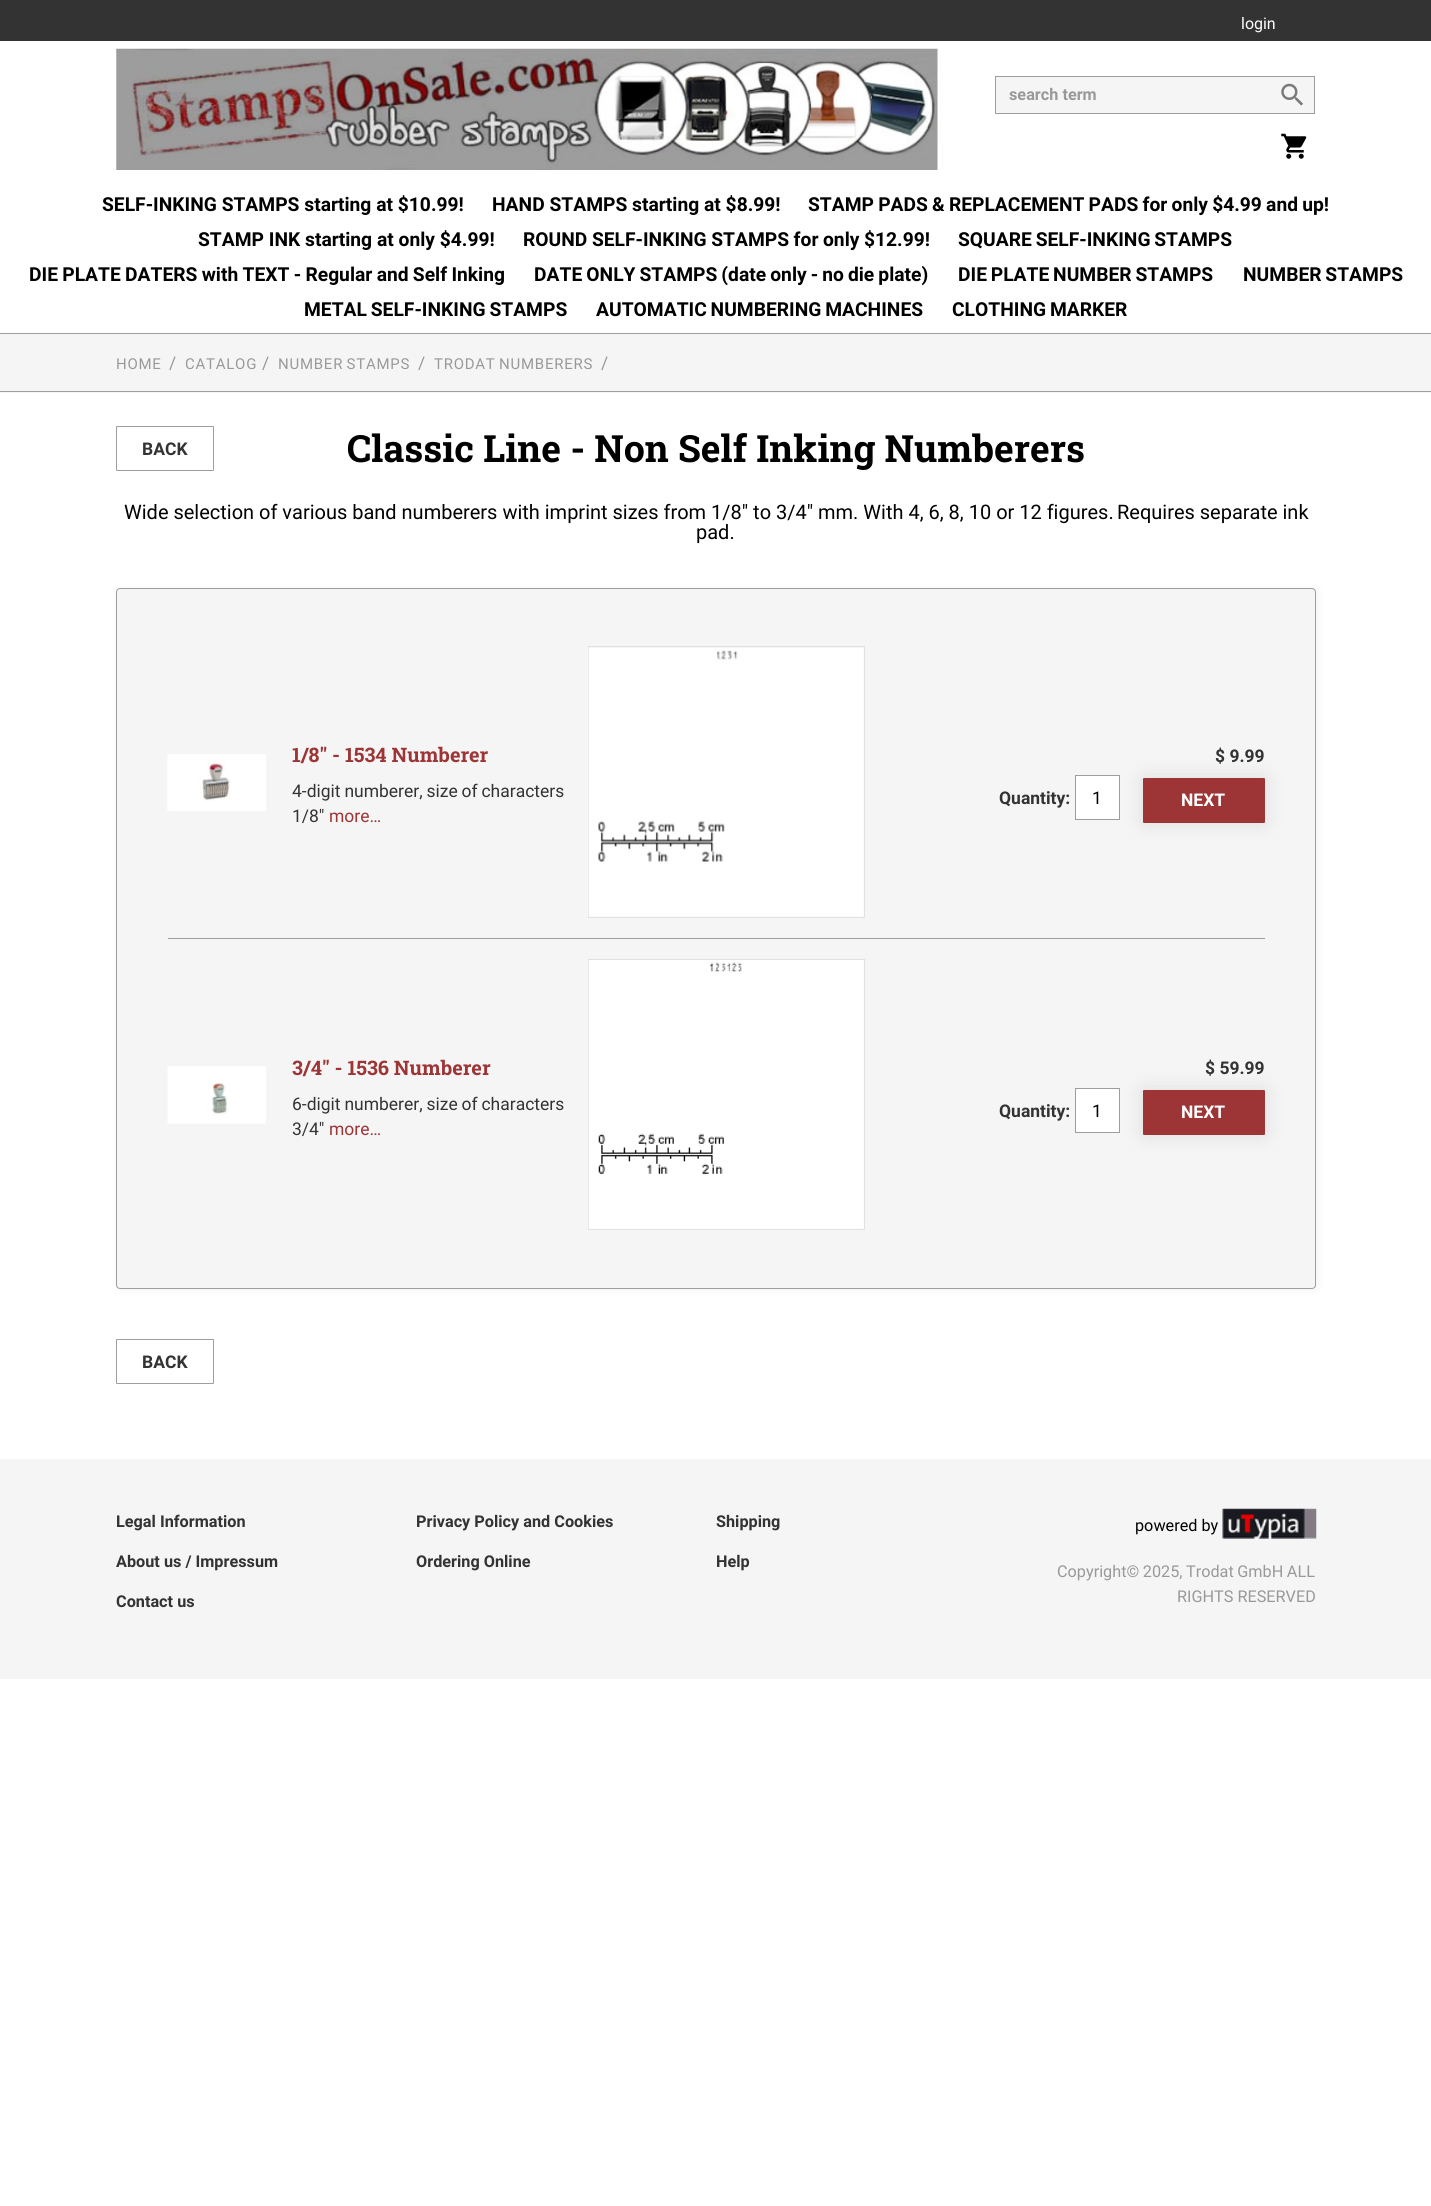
#include <cairo.h>
#include <math.h>
#include <stddef.h>

static cairo_t *ctx;

static void use_color(int r, int g, int b) {
    cairo_set_source_rgb(ctx, r / 255.0, g / 255.0, b / 255.0);
}

static void spaced_text(double x, double y, const char *s, double letter, double word) {
    cairo_move_to(ctx, x, y);
    while (*s) {
        char ch[5] = {0};
        int n = 0;
        do ch[n++] = *s++; while ((*s & 0xC0) == 0x80);
        cairo_show_text(ctx, ch);
        cairo_rel_move_to(ctx, letter + word * (*ch == ' '), 0);
    }
}

static void round_rect(double x, double y, double w, double h, double r) {
    cairo_new_sub_path(ctx);
    cairo_arc(ctx, x + w - r, y + h - r, r, 0, M_PI / 2);
    cairo_arc(ctx, x + r, y + h - r, r, M_PI / 2, M_PI);
    cairo_arc(ctx, x + r, y + r, r, M_PI, 1.5 * M_PI);
    cairo_arc(ctx, x + w - r, y + r, r, 1.5 * M_PI, 2 * M_PI);
    cairo_close_path(ctx);
}

static void shadow(double x, double y, double w, double h, double r, double blur, double alpha) {
    cairo_push_group_with_content(ctx, CAIRO_CONTENT_ALPHA);
    cairo_set_operator(ctx, CAIRO_OPERATOR_SOURCE);
    for (int i = 15; i >= -15 && fmin(w, h) + blur * i / 3 > 0; i -= 2) {
        double e = blur * i / 6;
        cairo_set_source_rgba(ctx, 0, 0, 0, alpha * erfc((i - 1) / 8.5) / 2);
        round_rect(x - e, y - e, w + 2 * e, h + 2 * e, fmax(0, fmin(r + e + blur * .6, fmin(w, h) / 2 + e)));
        cairo_fill(ctx);
    }
    cairo_pattern_t *soft = cairo_pop_group(ctx);
    cairo_mask(ctx, soft);
    cairo_pattern_destroy(soft);
}

static void picture(const char *path, double x, double y, double w, double h) {
    cairo_surface_t *image = cairo_image_surface_create_from_png(path);
    cairo_save(ctx);
    cairo_set_source_surface(ctx, image, x, y);
    cairo_rectangle(ctx, x, y, w, h);
    cairo_fill(ctx);
    cairo_restore(ctx);
    cairo_surface_destroy(image);
}

int main(void) {
    cairo_surface_t *surface = cairo_image_surface_create(CAIRO_FORMAT_RGB24, 1431, 2206);
    ctx = cairo_create(surface);
    cairo_font_options_t *options = cairo_font_options_create();
    cairo_font_options_set_hint_metrics(options, CAIRO_HINT_METRICS_OFF);
    cairo_font_options_set_hint_style(options, CAIRO_HINT_STYLE_NONE);
    cairo_set_font_options(ctx, options);
    cairo_set_miter_limit(ctx, 4);
    use_color(255, 255, 255);
    cairo_paint(ctx);
    use_color(51, 51, 51);
    cairo_rectangle(ctx, 0, 0, 1431, 41);
    cairo_fill(ctx);
    cairo_select_font_face(ctx, "Roboto", CAIRO_FONT_SLANT_NORMAL, CAIRO_FONT_WEIGHT_NORMAL);
    cairo_set_font_size(ctx, 16);
    use_color(255, 255, 255);
    cairo_move_to(ctx, 1241, 29);
    cairo_show_text(ctx, "login");
    picture("img1.png", 116, 48, 822, 122);
    use_color(245, 245, 245);
    cairo_rectangle(ctx, 995.5, 76.5, 319, 37);
    cairo_fill_preserve(ctx);
    use_color(157, 157, 157);
    cairo_set_line_width(ctx, 1);
    cairo_stroke(ctx);
    cairo_select_font_face(ctx, "Roboto", CAIRO_FONT_SLANT_NORMAL, CAIRO_FONT_WEIGHT_BOLD);
    cairo_set_font_size(ctx, 16.25);
    use_color(153, 153, 153);
    cairo_move_to(ctx, 1009, 100);
    cairo_show_text(ctx, "search term");
    picture("img2.png", 1281, 83, 22, 23);
    picture("img3.png", 1281, 133, 26, 26);
    cairo_set_font_size(ctx, 19.25);
    use_color(0, 0, 0);
    cairo_move_to(ctx, 102, 211);
    cairo_show_text(ctx, "SELF-INKING STAMPS starting at $10.99!");
    cairo_move_to(ctx, 492, 211);
    cairo_show_text(ctx, "HAND STAMPS starting at $8.99!");
    spaced_text(808, 211, "STAMP PADS & REPLACEMENT PADS for only $4.99 and up!", 0, -0.6);
    cairo_move_to(ctx, 198, 246);
    cairo_show_text(ctx, "STAMP INK starting at only $4.99!");
    spaced_text(523, 246, "ROUND SELF-INKING STAMPS for only $12.99!", 0, -0.25);
    spaced_text(958, 246, "SQUARE SELF-INKING STAMPS", 0, -1);
    spaced_text(29, 281, "DIE PLATE DATERS with TEXT - Regular and Self Inking", 0, -0.5);
    spaced_text(534, 281, "DATE ONLY STAMPS (date only - no die plate)", 0, -0.75);
    spaced_text(958, 281, "DIE PLATE NUMBER STAMPS", 0, -1);
    spaced_text(1243, 281, "NUMBER STAMPS", 0, -1);
    spaced_text(304, 316, "METAL SELF-INKING STAMPS", 0, -1);
    spaced_text(596, 316, "AUTOMATIC NUMBERING MACHINES", 0, -1);
    spaced_text(952, 316, "CLOTHING MARKER", 0, -1);
    use_color(245, 245, 245);
    cairo_rectangle(ctx, 0, 334, 1431, 59);
    cairo_fill(ctx);
    use_color(157, 157, 157);
    cairo_rectangle(ctx, 0, 333, 1431, 1);
    cairo_fill(ctx);
    cairo_rectangle(ctx, 0, 391, 1431, 1);
    cairo_fill(ctx);
    cairo_select_font_face(ctx, "Roboto", CAIRO_FONT_SLANT_NORMAL, CAIRO_FONT_WEIGHT_NORMAL);
    cairo_set_font_size(ctx, 15);
    use_color(153, 153, 153);
    spaced_text(116, 369, "HOME", 0.75, 0);
    cairo_set_font_size(ctx, 17.5);
    cairo_move_to(ctx, 169, 369);
    cairo_show_text(ctx, "/");
    cairo_set_font_size(ctx, 15);
    spaced_text(185, 369, "CATALOG", 0.75, 0);
    cairo_set_font_size(ctx, 17.5);
    cairo_move_to(ctx, 262, 369);
    cairo_show_text(ctx, "/");
    cairo_set_font_size(ctx, 15);
    spaced_text(278, 369, "NUMBER STAMPS", 0.75, -1);
    cairo_set_font_size(ctx, 17.5);
    cairo_move_to(ctx, 418, 369);
    cairo_show_text(ctx, "/");
    cairo_set_font_size(ctx, 15);
    spaced_text(434, 369, "TRODAT NUMBERERS", 0.75, -1);
    cairo_set_font_size(ctx, 17.5);
    cairo_move_to(ctx, 601, 369);
    cairo_show_text(ctx, "/");
    round_rect(116.5, 426.5, 97, 44, 0.5);
    use_color(157, 157, 157);
    cairo_stroke(ctx);
    cairo_select_font_face(ctx, "Roboto", CAIRO_FONT_SLANT_NORMAL, CAIRO_FONT_WEIGHT_BOLD);
    use_color(51, 51, 51);
    cairo_move_to(ctx, 142, 455);
    cairo_show_text(ctx, "BACK");
    cairo_select_font_face(ctx, "Roboto Slab", CAIRO_FONT_SLANT_NORMAL, CAIRO_FONT_WEIGHT_BOLD);
    cairo_set_font_size(ctx, 37.5);
    use_color(0, 0, 0);
    cairo_move_to(ctx, 347, 462);
    cairo_show_text(ctx, "Classic Line - Non Self Inking Numberers");
    cairo_select_font_face(ctx, "Roboto", CAIRO_FONT_SLANT_NORMAL, CAIRO_FONT_WEIGHT_NORMAL);
    cairo_set_font_size(ctx, 20);
    cairo_move_to(ctx, 124, 519);
    cairo_show_text(ctx, "Wide selection of various band numberers with imprint sizes from 1/8\" to 3/4\" mm. With 4, 6, 8, 10 or 12 figures.");
    cairo_move_to(ctx, 1117, 519);
    cairo_show_text(ctx, "Requires separate ink");
    cairo_move_to(ctx, 696, 539);
    cairo_show_text(ctx, "pad.");
    use_color(0, 0, 0);
    shadow(118, 589, 1200, 701, 4, 4, 0.05);
    use_color(245, 245, 245);
    round_rect(116.5, 588.5, 1199, 700, 3.5);
    cairo_fill_preserve(ctx);
    use_color(157, 157, 157);
    cairo_stroke(ctx);
    picture("img4.png", 167, 754, 99, 57);
    cairo_select_font_face(ctx, "Roboto Slab", CAIRO_FONT_SLANT_NORMAL, CAIRO_FONT_WEIGHT_BOLD);
    use_color(157, 53, 54);
    cairo_move_to(ctx, 292, 762);
    cairo_show_text(ctx, "1/8\" - 1534 Numberer");
    cairo_select_font_face(ctx, "Roboto", CAIRO_FONT_SLANT_NORMAL, CAIRO_FONT_WEIGHT_NORMAL);
    cairo_set_font_size(ctx, 17.5);
    use_color(51, 51, 51);
    spaced_text(292, 797, "4-digit numberer, size of characters", 0, -0.5);
    cairo_move_to(ctx, 292, 822);
    cairo_show_text(ctx, "1/8\"");
    use_color(157, 53, 54);
    cairo_move_to(ctx, 329, 822);
    cairo_show_text(ctx, "more…");
    cairo_rectangle(ctx, 588.5, 646.5, 276, 271);
    use_color(225, 225, 225);
    cairo_stroke(ctx);
    picture("img5.png", 588, 648, 276, 269);
    cairo_select_font_face(ctx, "Roboto", CAIRO_FONT_SLANT_NORMAL, CAIRO_FONT_WEIGHT_BOLD);
    use_color(51, 51, 51);
    cairo_move_to(ctx, 1215, 762);
    cairo_show_text(ctx, "$ 9.99");
    cairo_move_to(ctx, 999, 804);
    cairo_show_text(ctx, "Quantity:");
    use_color(255, 255, 255);
    cairo_rectangle(ctx, 1075.5, 775.5, 44, 44);
    cairo_fill_preserve(ctx);
    use_color(157, 157, 157);
    cairo_stroke(ctx);
    cairo_select_font_face(ctx, "Roboto", CAIRO_FONT_SLANT_NORMAL, CAIRO_FONT_WEIGHT_NORMAL);
    use_color(0, 0, 0);
    cairo_move_to(ctx, 1092, 804);
    cairo_show_text(ctx, "1");
    use_color(0, 0, 0);
    shadow(1143, 778, 122, 45, 1, 10, 0.1);
    use_color(157, 53, 54);
    round_rect(1143.5, 778.5, 121, 44, 0.5);
    cairo_fill_preserve(ctx);
    cairo_stroke(ctx);
    cairo_select_font_face(ctx, "Roboto", CAIRO_FONT_SLANT_NORMAL, CAIRO_FONT_WEIGHT_BOLD);
    use_color(255, 255, 255);
    cairo_move_to(ctx, 1181, 806);
    cairo_show_text(ctx, "NEXT");
    use_color(157, 157, 157);
    cairo_rectangle(ctx, 168, 938, 1097, 1);
    cairo_fill(ctx);
    picture("img6.png", 167, 1066, 99, 58);
    cairo_select_font_face(ctx, "Roboto Slab", CAIRO_FONT_SLANT_NORMAL, CAIRO_FONT_WEIGHT_BOLD);
    cairo_set_font_size(ctx, 20);
    use_color(157, 53, 54);
    cairo_move_to(ctx, 292, 1075);
    cairo_show_text(ctx, "3/4\" - 1536 Numberer");
    cairo_select_font_face(ctx, "Roboto", CAIRO_FONT_SLANT_NORMAL, CAIRO_FONT_WEIGHT_NORMAL);
    cairo_set_font_size(ctx, 17.5);
    use_color(51, 51, 51);
    spaced_text(292, 1110, "6-digit numberer, size of characters", 0, -0.5);
    cairo_move_to(ctx, 292, 1135);
    cairo_show_text(ctx, "3/4\"");
    use_color(157, 53, 54);
    cairo_move_to(ctx, 329, 1135);
    cairo_show_text(ctx, "more…");
    cairo_rectangle(ctx, 588.5, 959.5, 276, 270);
    use_color(225, 225, 225);
    cairo_stroke(ctx);
    picture("img7.png", 588, 960, 276, 269);
    cairo_select_font_face(ctx, "Roboto", CAIRO_FONT_SLANT_NORMAL, CAIRO_FONT_WEIGHT_BOLD);
    use_color(51, 51, 51);
    cairo_move_to(ctx, 1205, 1074);
    cairo_show_text(ctx, "$ 59.99");
    cairo_move_to(ctx, 999, 1117);
    cairo_show_text(ctx, "Quantity:");
    use_color(255, 255, 255);
    cairo_rectangle(ctx, 1075.5, 1088.5, 44, 44);
    cairo_fill_preserve(ctx);
    use_color(157, 157, 157);
    cairo_stroke(ctx);
    cairo_select_font_face(ctx, "Roboto", CAIRO_FONT_SLANT_NORMAL, CAIRO_FONT_WEIGHT_NORMAL);
    use_color(0, 0, 0);
    cairo_move_to(ctx, 1092, 1117);
    cairo_show_text(ctx, "1");
    use_color(0, 0, 0);
    shadow(1143, 1090, 122, 45, 1, 10, 0.1);
    use_color(157, 53, 54);
    round_rect(1143.5, 1090.5, 121, 44, 0.5);
    cairo_fill_preserve(ctx);
    cairo_stroke(ctx);
    cairo_select_font_face(ctx, "Roboto", CAIRO_FONT_SLANT_NORMAL, CAIRO_FONT_WEIGHT_BOLD);
    use_color(255, 255, 255);
    cairo_move_to(ctx, 1181, 1118);
    cairo_show_text(ctx, "NEXT");
    round_rect(116.5, 1339.5, 97, 44, 0.5);
    use_color(157, 157, 157);
    cairo_stroke(ctx);
    use_color(51, 51, 51);
    cairo_move_to(ctx, 142, 1368);
    cairo_show_text(ctx, "BACK");
    use_color(245, 245, 245);
    cairo_rectangle(ctx, 0, 1459, 1431, 220);
    cairo_fill(ctx);
    cairo_set_font_size(ctx, 16.25);
    use_color(51, 51, 51);
    cairo_move_to(ctx, 116, 1527);
    cairo_show_text(ctx, "Legal Information");
    cairo_move_to(ctx, 116, 1567);
    cairo_show_text(ctx, "About us / Impressum");
    cairo_move_to(ctx, 116, 1607);
    cairo_show_text(ctx, "Contact us");
    cairo_move_to(ctx, 416, 1527);
    cairo_show_text(ctx, "Privacy Policy and Cookies");
    cairo_move_to(ctx, 416, 1567);
    cairo_show_text(ctx, "Ordering Online");
    cairo_move_to(ctx, 716, 1527);
    cairo_show_text(ctx, "Shipping");
    cairo_move_to(ctx, 716, 1567);
    cairo_show_text(ctx, "Help");
    cairo_select_font_face(ctx, "Roboto", CAIRO_FONT_SLANT_NORMAL, CAIRO_FONT_WEIGHT_NORMAL);
    use_color(0, 0, 0);
    cairo_move_to(ctx, 1135, 1531);
    cairo_show_text(ctx, "powered by");
    picture("img8.png", 1222, 1508, 95, 31);
    use_color(153, 153, 153);
    spaced_text(1057, 1577, "Copyright© 2025, Trodat GmbH ALL", 0, -0.5);
    cairo_move_to(ctx, 1177, 1602);
    cairo_show_text(ctx, "RIGHTS RESERVED");
    cairo_surface_write_to_png(surface, "result.png");
    cairo_font_options_destroy(options);
    cairo_destroy(ctx);
    cairo_surface_destroy(surface);
    return 0;
}
